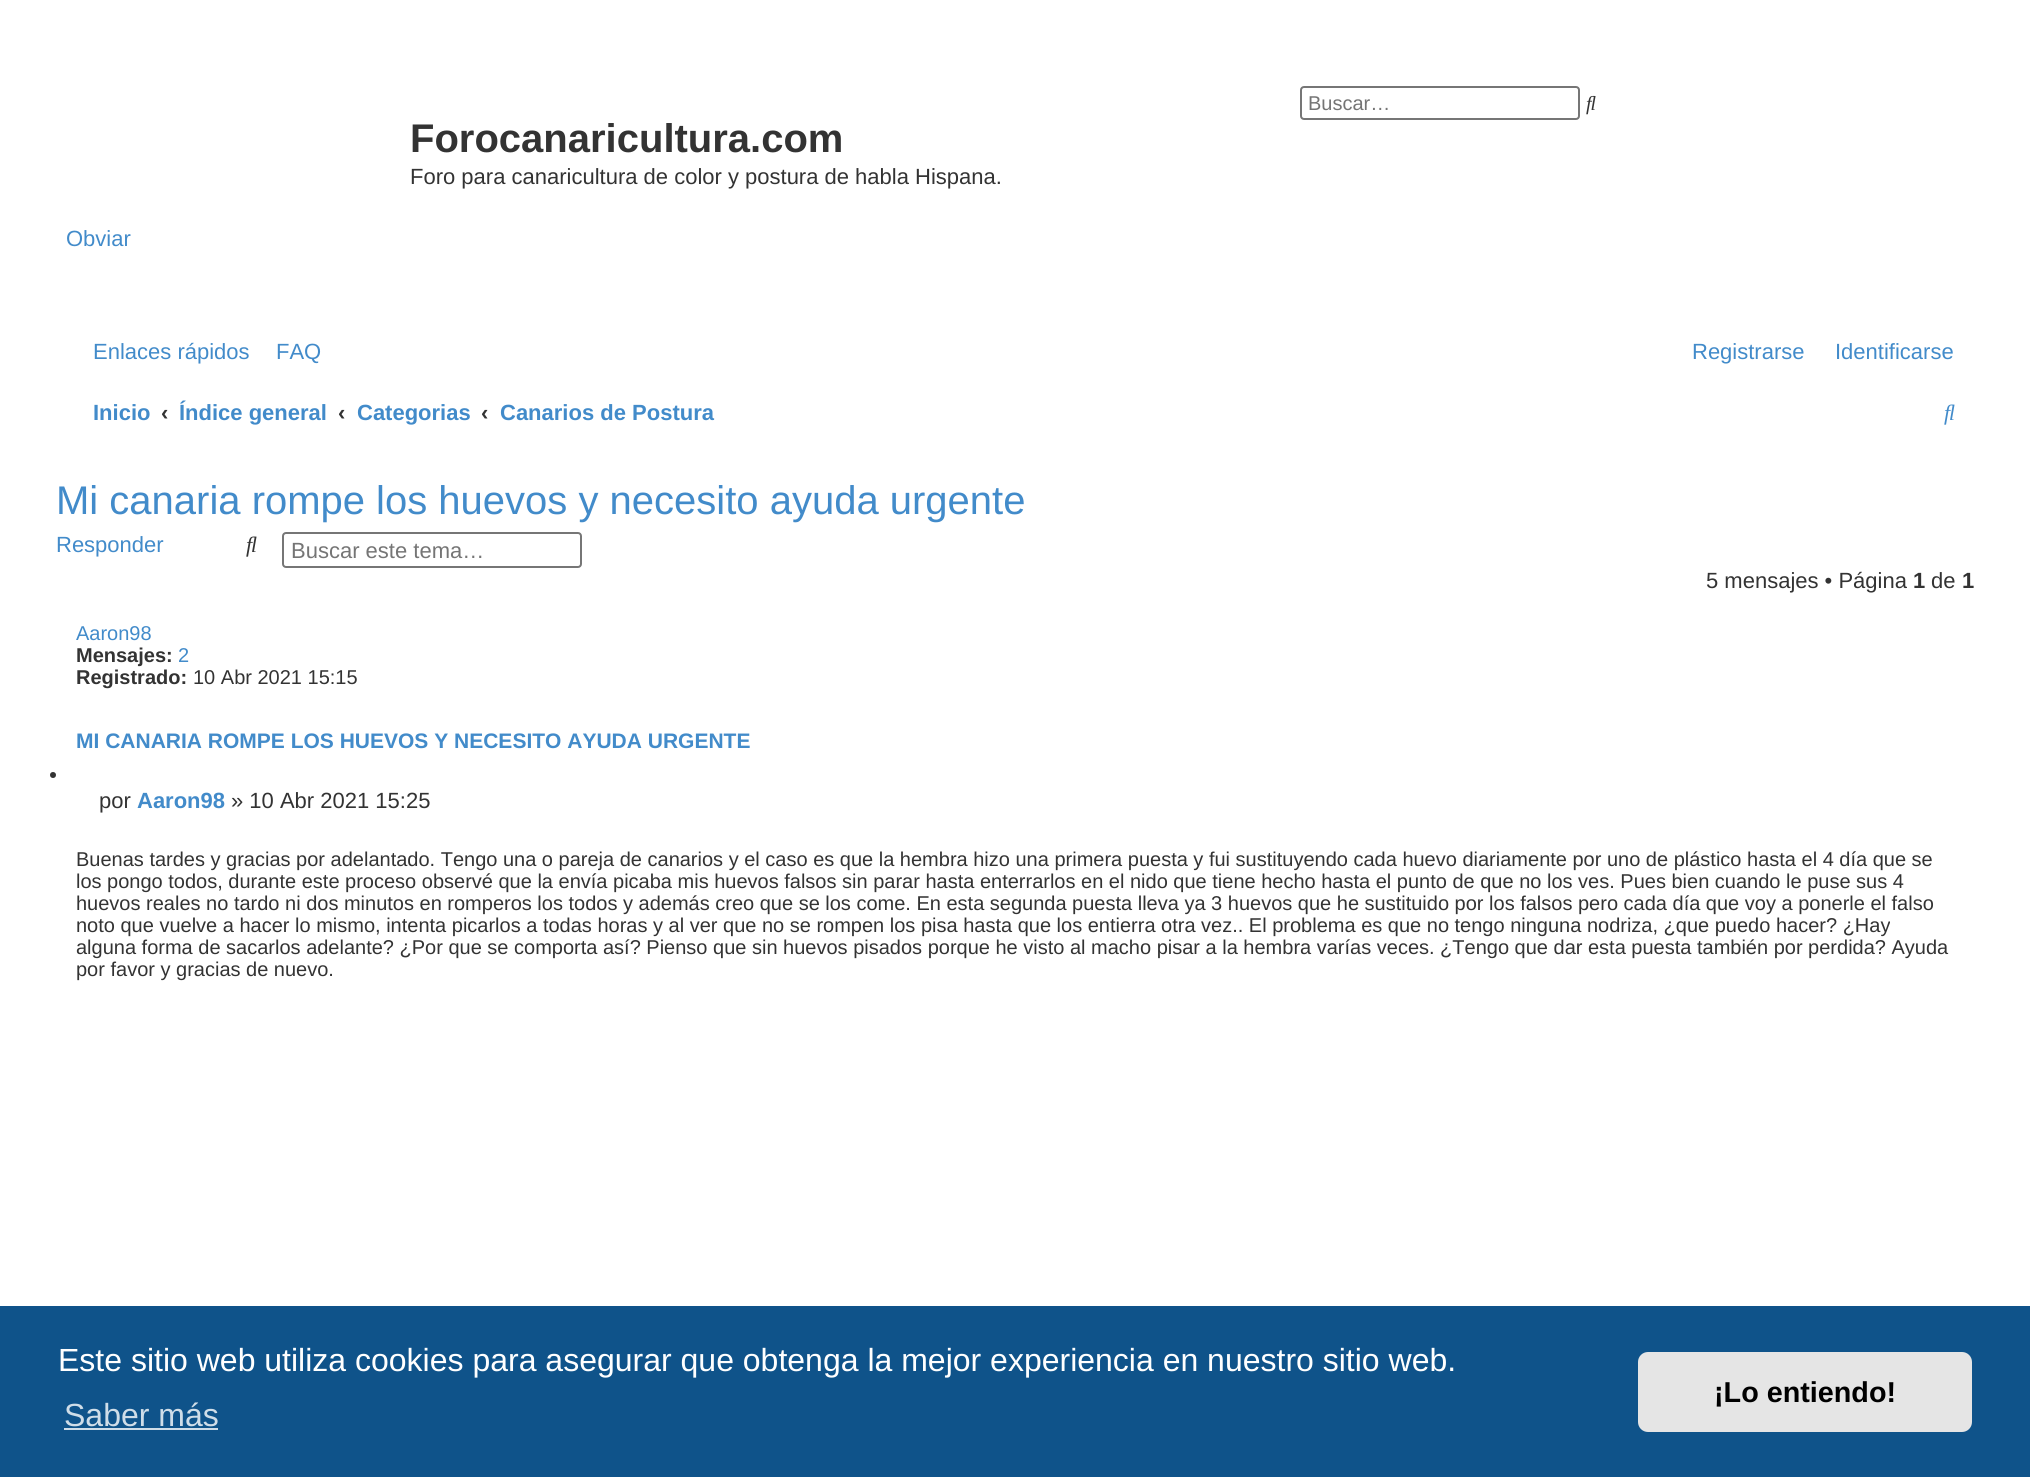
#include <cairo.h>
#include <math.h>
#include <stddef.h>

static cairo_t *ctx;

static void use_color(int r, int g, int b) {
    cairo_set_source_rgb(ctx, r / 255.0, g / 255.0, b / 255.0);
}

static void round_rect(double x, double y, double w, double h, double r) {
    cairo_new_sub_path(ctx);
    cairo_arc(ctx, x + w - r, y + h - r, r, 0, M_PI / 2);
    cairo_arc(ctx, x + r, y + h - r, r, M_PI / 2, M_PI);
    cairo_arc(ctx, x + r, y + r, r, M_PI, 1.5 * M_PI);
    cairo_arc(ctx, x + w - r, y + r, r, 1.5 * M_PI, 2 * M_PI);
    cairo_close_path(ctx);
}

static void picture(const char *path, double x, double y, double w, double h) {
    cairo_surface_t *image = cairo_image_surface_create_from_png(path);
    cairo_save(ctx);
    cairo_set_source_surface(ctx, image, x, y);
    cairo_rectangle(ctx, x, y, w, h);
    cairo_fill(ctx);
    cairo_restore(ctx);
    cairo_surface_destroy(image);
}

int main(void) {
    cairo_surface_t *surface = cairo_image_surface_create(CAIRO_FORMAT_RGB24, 2030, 1477);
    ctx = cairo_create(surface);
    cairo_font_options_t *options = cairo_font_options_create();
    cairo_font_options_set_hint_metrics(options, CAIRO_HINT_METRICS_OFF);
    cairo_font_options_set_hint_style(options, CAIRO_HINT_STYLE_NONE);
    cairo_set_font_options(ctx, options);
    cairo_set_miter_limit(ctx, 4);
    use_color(255, 255, 255);
    cairo_paint(ctx);
    round_rect(1301, 87, 278, 32, 3);
    use_color(118, 118, 118);
    cairo_stroke(ctx);
    cairo_select_font_face(ctx, "Liberation Sans", CAIRO_FONT_SLANT_NORMAL, CAIRO_FONT_WEIGHT_NORMAL);
    cairo_set_font_size(ctx, 20);
    use_color(117, 117, 117);
    cairo_move_to(ctx, 1308, 110);
    cairo_show_text(ctx, "Buscar…");
    picture("img1.png", 1586, 95, 10, 20);
    cairo_select_font_face(ctx, "Liberation Sans", CAIRO_FONT_SLANT_NORMAL, CAIRO_FONT_WEIGHT_BOLD);
    cairo_set_font_size(ctx, 40);
    use_color(51, 51, 51);
    cairo_move_to(ctx, 410, 152);
    cairo_show_text(ctx, "Forocanaricultura.com");
    cairo_select_font_face(ctx, "Liberation Sans", CAIRO_FONT_SLANT_NORMAL, CAIRO_FONT_WEIGHT_NORMAL);
    cairo_set_font_size(ctx, 22);
    cairo_move_to(ctx, 410, 184);
    cairo_show_text(ctx, "Foro para canaricultura de color y postura de habla Hispana.");
    use_color(66, 139, 202);
    cairo_move_to(ctx, 66, 246);
    cairo_show_text(ctx, "Obviar");
    cairo_move_to(ctx, 93, 359);
    cairo_show_text(ctx, "Enlaces rápidos");
    cairo_move_to(ctx, 276, 359);
    cairo_show_text(ctx, "FAQ");
    cairo_move_to(ctx, 1692, 359);
    cairo_show_text(ctx, "Registrarse");
    cairo_move_to(ctx, 1835, 359);
    cairo_show_text(ctx, "Identificarse");
    cairo_select_font_face(ctx, "Liberation Sans", CAIRO_FONT_SLANT_NORMAL, CAIRO_FONT_WEIGHT_BOLD);
    cairo_move_to(ctx, 93, 420);
    cairo_show_text(ctx, "Inicio");
    use_color(51, 51, 51);
    cairo_move_to(ctx, 161, 420);
    cairo_show_text(ctx, "‹");
    use_color(66, 139, 202);
    cairo_move_to(ctx, 179, 420);
    cairo_show_text(ctx, "Índice general");
    use_color(51, 51, 51);
    cairo_move_to(ctx, 338, 420);
    cairo_show_text(ctx, "‹");
    use_color(66, 139, 202);
    cairo_move_to(ctx, 357, 420);
    cairo_show_text(ctx, "Categorias");
    use_color(51, 51, 51);
    cairo_move_to(ctx, 481, 420);
    cairo_show_text(ctx, "‹");
    use_color(66, 139, 202);
    cairo_move_to(ctx, 500, 420);
    cairo_show_text(ctx, "Canarios de Postura");
    picture("img2.png", 1944, 404, 11, 21);
    cairo_select_font_face(ctx, "Liberation Sans", CAIRO_FONT_SLANT_NORMAL, CAIRO_FONT_WEIGHT_NORMAL);
    cairo_set_font_size(ctx, 40);
    cairo_move_to(ctx, 56, 514);
    cairo_show_text(ctx, "Mi canaria rompe los huevos y necesito ayuda urgente");
    cairo_set_font_size(ctx, 22);
    cairo_move_to(ctx, 56, 552);
    cairo_show_text(ctx, "Responder");
    picture("img3.png", 246, 536, 11, 21);
    round_rect(283, 533, 298, 34, 3);
    use_color(118, 118, 118);
    cairo_stroke(ctx);
    use_color(117, 117, 117);
    cairo_move_to(ctx, 291, 558);
    cairo_show_text(ctx, "Buscar este tema…");
    use_color(51, 51, 51);
    cairo_move_to(ctx, 1706, 588);
    cairo_show_text(ctx, "5 mensajes • Página");
    cairo_select_font_face(ctx, "Liberation Sans", CAIRO_FONT_SLANT_NORMAL, CAIRO_FONT_WEIGHT_BOLD);
    cairo_move_to(ctx, 1913, 588);
    cairo_show_text(ctx, "1");
    cairo_select_font_face(ctx, "Liberation Sans", CAIRO_FONT_SLANT_NORMAL, CAIRO_FONT_WEIGHT_NORMAL);
    cairo_move_to(ctx, 1931, 588);
    cairo_show_text(ctx, "de");
    cairo_select_font_face(ctx, "Liberation Sans", CAIRO_FONT_SLANT_NORMAL, CAIRO_FONT_WEIGHT_BOLD);
    cairo_move_to(ctx, 1962, 588);
    cairo_show_text(ctx, "1");
    cairo_select_font_face(ctx, "Liberation Sans", CAIRO_FONT_SLANT_NORMAL, CAIRO_FONT_WEIGHT_NORMAL);
    cairo_set_font_size(ctx, 20);
    use_color(66, 139, 202);
    cairo_move_to(ctx, 76, 640);
    cairo_show_text(ctx, "Aaron98");
    cairo_select_font_face(ctx, "Liberation Sans", CAIRO_FONT_SLANT_NORMAL, CAIRO_FONT_WEIGHT_BOLD);
    use_color(51, 51, 51);
    cairo_move_to(ctx, 76, 662);
    cairo_show_text(ctx, "Mensajes:");
    cairo_select_font_face(ctx, "Liberation Sans", CAIRO_FONT_SLANT_NORMAL, CAIRO_FONT_WEIGHT_NORMAL);
    use_color(66, 139, 202);
    cairo_move_to(ctx, 178, 662);
    cairo_show_text(ctx, "2");
    cairo_select_font_face(ctx, "Liberation Sans", CAIRO_FONT_SLANT_NORMAL, CAIRO_FONT_WEIGHT_BOLD);
    use_color(51, 51, 51);
    cairo_move_to(ctx, 76, 684);
    cairo_show_text(ctx, "Registrado:");
    cairo_select_font_face(ctx, "Liberation Sans", CAIRO_FONT_SLANT_NORMAL, CAIRO_FONT_WEIGHT_NORMAL);
    cairo_move_to(ctx, 193, 684);
    cairo_show_text(ctx, "10 Abr 2021 15:15");
    cairo_select_font_face(ctx, "Liberation Sans", CAIRO_FONT_SLANT_NORMAL, CAIRO_FONT_WEIGHT_BOLD);
    cairo_set_font_size(ctx, 21);
    use_color(66, 139, 202);
    cairo_move_to(ctx, 76, 748);
    cairo_show_text(ctx, "MI CANARIA ROMPE LOS HUEVOS Y NECESITO AYUDA URGENTE");
    use_color(51, 51, 51);
    cairo_new_path(ctx);
    cairo_arc(ctx, 53, 775, 3, 0, 2 * M_PI);
    cairo_fill(ctx);
    cairo_select_font_face(ctx, "Liberation Sans", CAIRO_FONT_SLANT_NORMAL, CAIRO_FONT_WEIGHT_NORMAL);
    cairo_set_font_size(ctx, 22);
    cairo_move_to(ctx, 99, 808);
    cairo_show_text(ctx, "por");
    cairo_select_font_face(ctx, "Liberation Sans", CAIRO_FONT_SLANT_NORMAL, CAIRO_FONT_WEIGHT_BOLD);
    use_color(66, 139, 202);
    cairo_move_to(ctx, 137, 808);
    cairo_show_text(ctx, "Aaron98");
    cairo_select_font_face(ctx, "Liberation Sans", CAIRO_FONT_SLANT_NORMAL, CAIRO_FONT_WEIGHT_NORMAL);
    use_color(51, 51, 51);
    cairo_move_to(ctx, 231, 808);
    cairo_show_text(ctx, "» 10 Abr 2021 15:25");
    cairo_set_font_size(ctx, 20);
    cairo_move_to(ctx, 76, 866);
    cairo_show_text(ctx, "Buenas tardes y gracias por adelantado. Tengo una o pareja de canarios y el caso es que la hembra hizo una primera puesta y fui sustituyendo cada huevo diariamente por uno de plástico hasta el 4 día que se");
    cairo_move_to(ctx, 76, 888);
    cairo_show_text(ctx, "los pongo todos, durante este proceso observé que la envía picaba mis huevos falsos sin parar hasta enterrarlos en el nido que tiene hecho hasta el punto de que no los ves. Pues bien cuando le puse sus 4");
    cairo_move_to(ctx, 76, 910);
    cairo_show_text(ctx, "huevos reales no tardo ni dos minutos en romperos los todos y además creo que se los come. En esta segunda puesta lleva ya 3 huevos que he sustituido por los falsos pero cada día que voy a ponerle el falso");
    cairo_move_to(ctx, 76, 932);
    cairo_show_text(ctx, "noto que vuelve a hacer lo mismo, intenta picarlos a todas horas y al ver que no se rompen los pisa hasta que los entierra otra vez.. El problema es que no tengo ninguna nodriza, ¿que puedo hacer? ¿Hay");
    cairo_move_to(ctx, 76, 954);
    cairo_show_text(ctx, "alguna forma de sacarlos adelante? ¿Por que se comporta así? Pienso que sin huevos pisados porque he visto al macho pisar a la hembra varías veces. ¿Tengo que dar esta puesta también por perdida? Ayuda");
    cairo_move_to(ctx, 76, 976);
    cairo_show_text(ctx, "por favor y gracias de nuevo.");
    use_color(15, 83, 138);
    cairo_rectangle(ctx, 0, 1306, 2030, 171);
    cairo_fill(ctx);
    cairo_set_font_size(ctx, 32);
    use_color(255, 255, 255);
    cairo_move_to(ctx, 58, 1371);
    cairo_show_text(ctx, "Este sitio web utiliza cookies para asegurar que obtenga la mejor experiencia en nuestro sitio web.");
    use_color(207, 221, 232);
    cairo_move_to(ctx, 64, 1426);
    cairo_show_text(ctx, "Saber más");
    cairo_rectangle(ctx, 64, 1428, 154, 2);
    cairo_fill(ctx);
    use_color(229, 229, 229);
    round_rect(1638, 1352, 334, 80, 10);
    cairo_fill(ctx);
    cairo_select_font_face(ctx, "Liberation Sans", CAIRO_FONT_SLANT_NORMAL, CAIRO_FONT_WEIGHT_BOLD);
    cairo_set_font_size(ctx, 28.75);
    use_color(0, 0, 0);
    cairo_move_to(ctx, 1714, 1402);
    cairo_show_text(ctx, "¡Lo entiendo!");
    cairo_surface_write_to_png(surface, "result.png");
    cairo_font_options_destroy(options);
    cairo_destroy(ctx);
    cairo_surface_destroy(surface);
    return 0;
}
